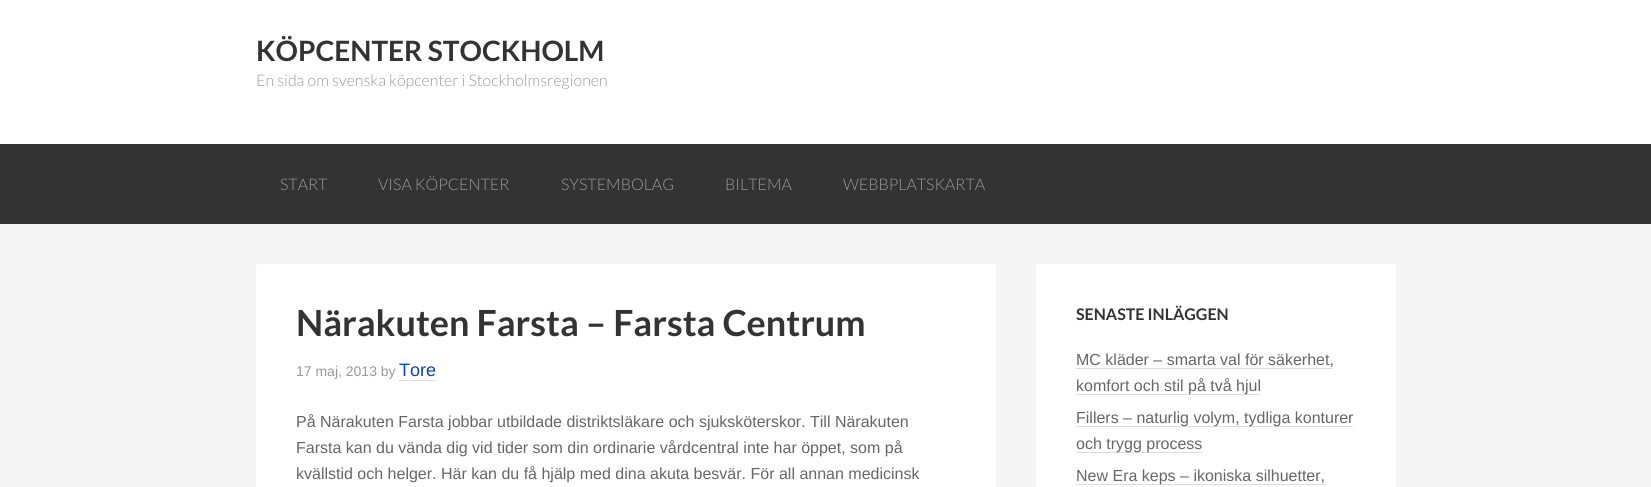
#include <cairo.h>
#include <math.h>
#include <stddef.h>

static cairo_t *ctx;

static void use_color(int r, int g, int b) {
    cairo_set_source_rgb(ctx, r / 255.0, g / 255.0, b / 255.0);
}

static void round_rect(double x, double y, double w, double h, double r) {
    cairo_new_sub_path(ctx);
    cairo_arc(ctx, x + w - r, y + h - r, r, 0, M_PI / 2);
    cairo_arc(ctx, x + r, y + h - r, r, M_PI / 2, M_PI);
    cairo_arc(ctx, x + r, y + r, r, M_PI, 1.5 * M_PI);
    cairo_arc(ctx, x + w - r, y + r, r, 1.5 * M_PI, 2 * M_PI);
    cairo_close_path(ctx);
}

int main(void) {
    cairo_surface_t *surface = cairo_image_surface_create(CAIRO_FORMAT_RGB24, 1651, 487);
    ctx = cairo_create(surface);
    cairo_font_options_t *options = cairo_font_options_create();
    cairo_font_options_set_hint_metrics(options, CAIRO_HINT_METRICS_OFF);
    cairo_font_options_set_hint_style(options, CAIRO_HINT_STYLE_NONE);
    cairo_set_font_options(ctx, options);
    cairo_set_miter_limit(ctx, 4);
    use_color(245, 245, 245);
    cairo_paint(ctx);
    use_color(255, 255, 255);
    cairo_rectangle(ctx, 0, 0, 1651, 144);
    cairo_fill(ctx);
    cairo_select_font_face(ctx, "Lato", CAIRO_FONT_SLANT_NORMAL, CAIRO_FONT_WEIGHT_BOLD);
    cairo_set_font_size(ctx, 28);
    use_color(51, 51, 51);
    cairo_move_to(ctx, 256, 61);
    cairo_show_text(ctx, "KÖPCENTER STOCKHOLM");
    cairo_select_font_face(ctx, "Lato Light", CAIRO_FONT_SLANT_NORMAL, CAIRO_FONT_WEIGHT_NORMAL);
    cairo_set_font_size(ctx, 16);
    use_color(153, 153, 153);
    cairo_move_to(ctx, 256, 86);
    cairo_show_text(ctx, "En sida om svenska köpcenter i Stockholmsregionen");
    use_color(51, 51, 51);
    cairo_rectangle(ctx, 0, 144, 1651, 80);
    cairo_fill(ctx);
    use_color(153, 153, 153);
    cairo_move_to(ctx, 280, 190);
    cairo_show_text(ctx, "START");
    cairo_move_to(ctx, 378, 190);
    cairo_show_text(ctx, "VISA KÖPCENTER");
    cairo_move_to(ctx, 561, 190);
    cairo_show_text(ctx, "SYSTEMBOLAG");
    cairo_move_to(ctx, 725, 190);
    cairo_show_text(ctx, "BILTEMA");
    cairo_move_to(ctx, 843, 190);
    cairo_show_text(ctx, "WEBBPLATSKARTA");
    use_color(255, 255, 255);
    round_rect(256, 264, 740, 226, 3);
    cairo_fill(ctx);
    cairo_select_font_face(ctx, "Lato", CAIRO_FONT_SLANT_NORMAL, CAIRO_FONT_WEIGHT_BOLD);
    cairo_set_font_size(ctx, 36);
    use_color(51, 51, 51);
    cairo_move_to(ctx, 296, 336);
    cairo_show_text(ctx, "Närakuten Farsta – Farsta Centrum");
    cairo_select_font_face(ctx, "Liberation Sans", CAIRO_FONT_SLANT_NORMAL, CAIRO_FONT_WEIGHT_NORMAL);
    cairo_set_font_size(ctx, 14);
    use_color(153, 153, 153);
    cairo_move_to(ctx, 296, 376);
    cairo_show_text(ctx, "17 maj, 2013 by");
    cairo_set_font_size(ctx, 18);
    use_color(6, 69, 173);
    cairo_move_to(ctx, 399, 376);
    cairo_show_text(ctx, "Tore");
    use_color(221, 221, 221);
    cairo_rectangle(ctx, 399, 380, 37, 1);
    cairo_fill(ctx);
    cairo_set_font_size(ctx, 16);
    use_color(102, 102, 102);
    cairo_move_to(ctx, 296, 427);
    cairo_show_text(ctx, "På Närakuten Farsta jobbar utbildade distriktsläkare och sjuksköterskor. Till Närakuten");
    cairo_move_to(ctx, 296, 453);
    cairo_show_text(ctx, "Farsta kan du vända dig vid tider som din ordinarie vårdcentral inte har öppet, som på");
    cairo_move_to(ctx, 296, 479);
    cairo_show_text(ctx, "kvällstid och helger. Här kan du få hjälp med dina akuta besvär. För all annan medicinsk");
    use_color(255, 255, 255);
    round_rect(1036, 264, 360, 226, 3);
    cairo_fill(ctx);
    cairo_select_font_face(ctx, "Lato", CAIRO_FONT_SLANT_NORMAL, CAIRO_FONT_WEIGHT_BOLD);
    use_color(51, 51, 51);
    cairo_move_to(ctx, 1076, 320);
    cairo_show_text(ctx, "SENASTE INLÄGGEN");
    cairo_select_font_face(ctx, "Liberation Sans", CAIRO_FONT_SLANT_NORMAL, CAIRO_FONT_WEIGHT_NORMAL);
    use_color(102, 102, 102);
    cairo_move_to(ctx, 1076, 365);
    cairo_show_text(ctx, "MC kläder – smarta val för säkerhet,");
    use_color(221, 221, 221);
    cairo_rectangle(ctx, 1076, 368, 257, 1);
    cairo_fill(ctx);
    cairo_rectangle(ctx, 1076, 394, 184, 1);
    cairo_fill(ctx);
    use_color(102, 102, 102);
    cairo_move_to(ctx, 1076, 391);
    cairo_show_text(ctx, "komfort och stil på två hjul");
    use_color(221, 221, 221);
    cairo_rectangle(ctx, 1076, 426, 277, 1);
    cairo_fill(ctx);
    use_color(102, 102, 102);
    cairo_move_to(ctx, 1076, 423);
    cairo_show_text(ctx, "Fillers – naturlig volym, tydliga konturer");
    use_color(221, 221, 221);
    cairo_rectangle(ctx, 1076, 452, 126, 1);
    cairo_fill(ctx);
    use_color(102, 102, 102);
    cairo_move_to(ctx, 1076, 449);
    cairo_show_text(ctx, "och trygg process");
    use_color(221, 221, 221);
    cairo_rectangle(ctx, 1076, 484, 249, 1);
    cairo_fill(ctx);
    use_color(102, 102, 102);
    cairo_move_to(ctx, 1076, 481);
    cairo_show_text(ctx, "New Era keps – ikoniska silhuetter,");
    cairo_surface_write_to_png(surface, "result.png");
    cairo_font_options_destroy(options);
    cairo_destroy(ctx);
    cairo_surface_destroy(surface);
    return 0;
}
